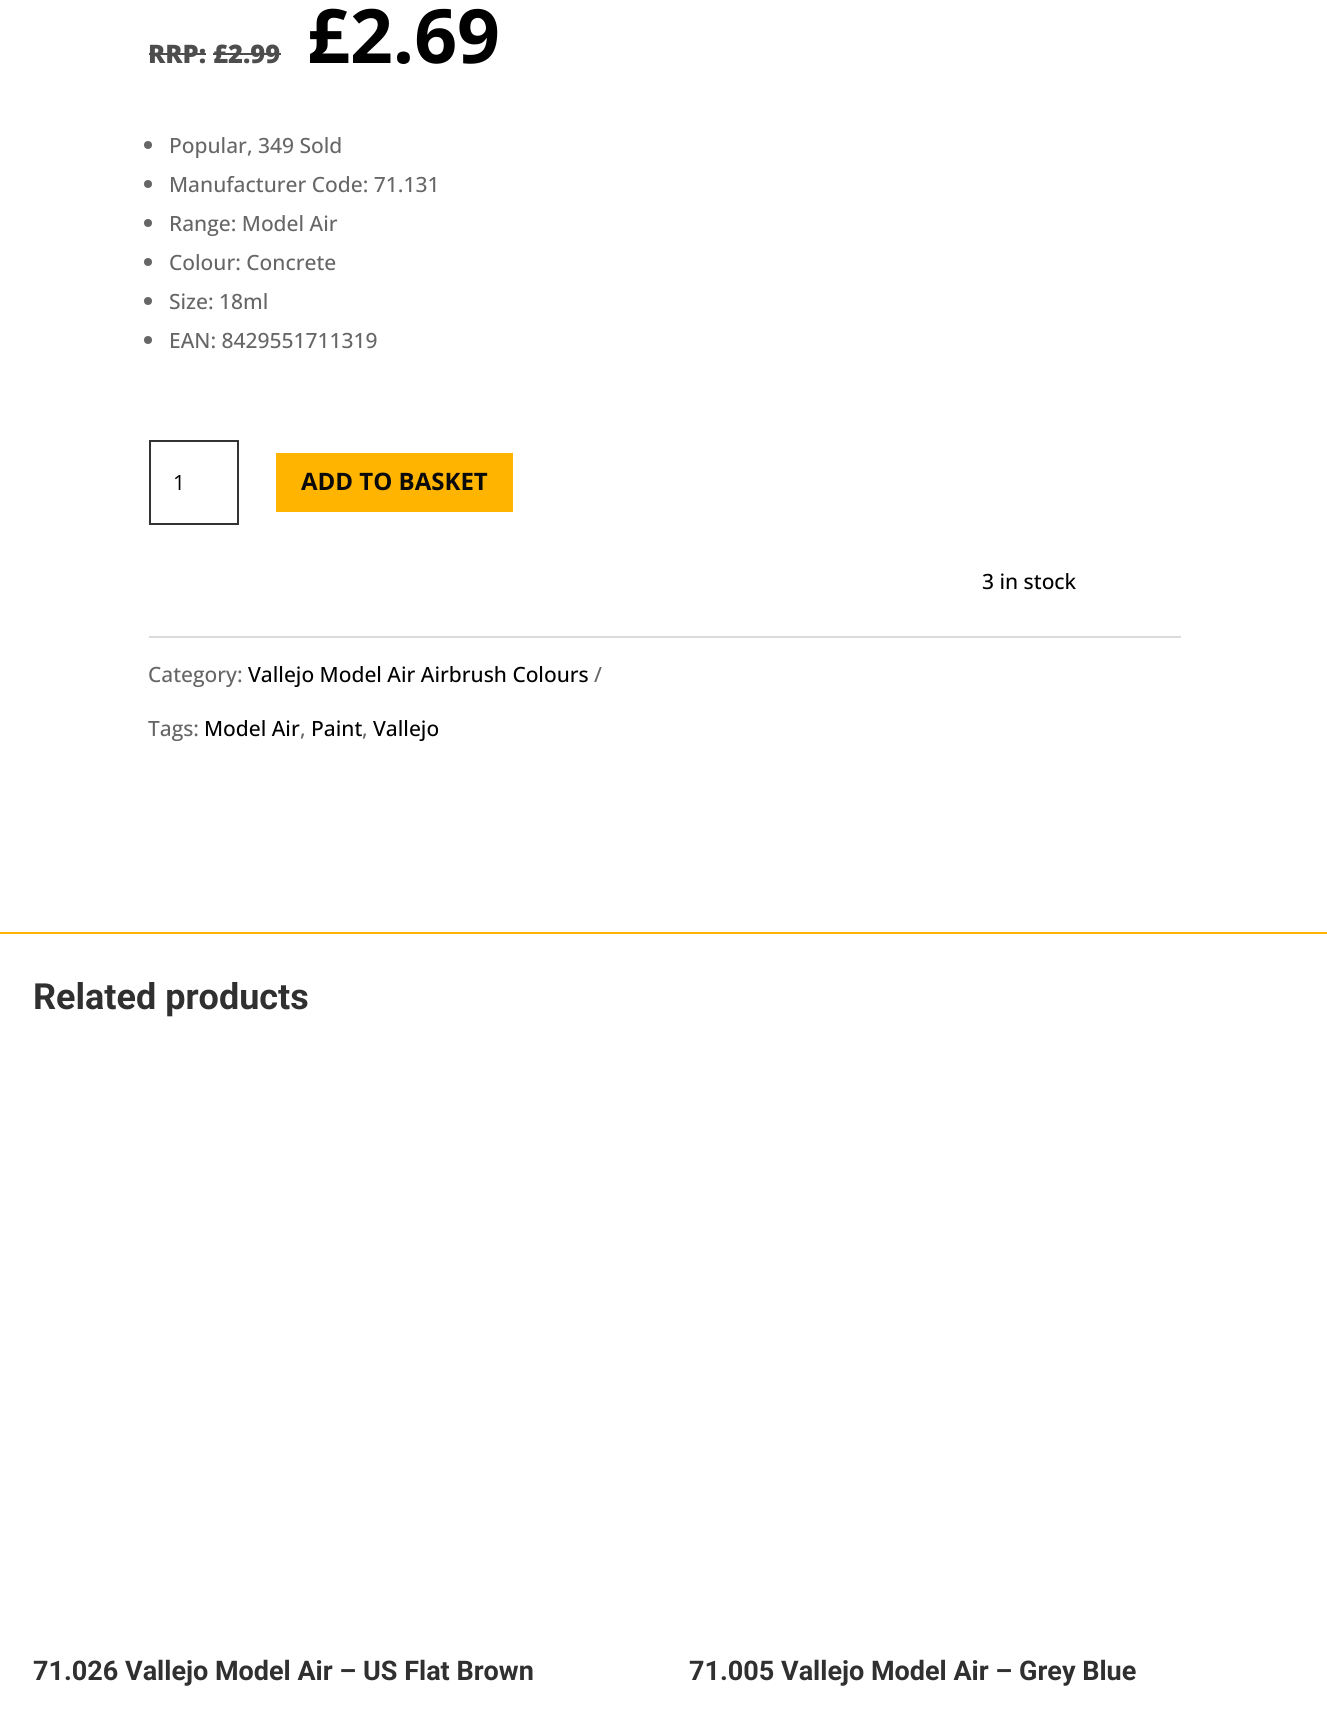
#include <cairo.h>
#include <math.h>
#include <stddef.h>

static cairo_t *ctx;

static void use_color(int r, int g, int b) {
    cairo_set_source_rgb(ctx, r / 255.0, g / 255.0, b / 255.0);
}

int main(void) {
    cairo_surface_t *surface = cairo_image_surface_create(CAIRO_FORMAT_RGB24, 1327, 1722);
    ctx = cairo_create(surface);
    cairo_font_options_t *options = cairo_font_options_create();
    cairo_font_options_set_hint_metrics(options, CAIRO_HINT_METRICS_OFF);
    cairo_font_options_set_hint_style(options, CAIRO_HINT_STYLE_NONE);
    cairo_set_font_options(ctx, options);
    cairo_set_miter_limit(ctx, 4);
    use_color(255, 255, 255);
    cairo_paint(ctx);
    cairo_select_font_face(ctx, "Open Sans ExtraBold", CAIRO_FONT_SLANT_NORMAL, CAIRO_FONT_WEIGHT_NORMAL);
    cairo_set_font_size(ctx, 25.5);
    use_color(77, 77, 77);
    cairo_move_to(ctx, 148, 63);
    cairo_show_text(ctx, "RRP:");
    cairo_rectangle(ctx, 149, 53, 57, 2);
    cairo_fill(ctx);
    cairo_move_to(ctx, 213, 63);
    cairo_show_text(ctx, "£2.99");
    cairo_rectangle(ctx, 213, 53, 68, 2);
    cairo_fill(ctx);
    cairo_select_font_face(ctx, "Open Sans", CAIRO_FONT_SLANT_NORMAL, CAIRO_FONT_WEIGHT_BOLD);
    cairo_set_font_size(ctx, 75);
    use_color(0, 0, 0);
    cairo_move_to(ctx, 307, 63);
    cairo_show_text(ctx, "£2.69");
    use_color(102, 102, 102);
    cairo_new_path(ctx);
    cairo_arc(ctx, 148, 145, 4, 0, 2 * M_PI);
    cairo_fill(ctx);
    cairo_select_font_face(ctx, "Open Sans Medium", CAIRO_FONT_SLANT_NORMAL, CAIRO_FONT_WEIGHT_NORMAL);
    cairo_set_font_size(ctx, 21);
    cairo_move_to(ctx, 169, 153);
    cairo_show_text(ctx, "Popular, 349 Sold");
    cairo_new_path(ctx);
    cairo_arc(ctx, 148, 184, 4, 0, 2 * M_PI);
    cairo_fill(ctx);
    cairo_move_to(ctx, 169, 192);
    cairo_show_text(ctx, "Manufacturer Code: 71.131");
    cairo_new_path(ctx);
    cairo_arc(ctx, 148, 223, 4, 0, 2 * M_PI);
    cairo_fill(ctx);
    cairo_move_to(ctx, 169, 231);
    cairo_show_text(ctx, "Range: Model Air");
    cairo_new_path(ctx);
    cairo_arc(ctx, 148, 262, 4, 0, 2 * M_PI);
    cairo_fill(ctx);
    cairo_move_to(ctx, 169, 270);
    cairo_show_text(ctx, "Colour: Concrete");
    cairo_new_path(ctx);
    cairo_arc(ctx, 148, 301, 4, 0, 2 * M_PI);
    cairo_fill(ctx);
    cairo_move_to(ctx, 169, 309);
    cairo_show_text(ctx, "Size: 18ml");
    cairo_new_path(ctx);
    cairo_arc(ctx, 148, 340, 4, 0, 2 * M_PI);
    cairo_fill(ctx);
    cairo_move_to(ctx, 169, 348);
    cairo_show_text(ctx, "EAN: 8429551711319");
    cairo_rectangle(ctx, 150, 441, 88, 83);
    use_color(51, 51, 51);
    cairo_stroke(ctx);
    cairo_select_font_face(ctx, "Open Sans", CAIRO_FONT_SLANT_NORMAL, CAIRO_FONT_WEIGHT_NORMAL);
    use_color(0, 0, 0);
    cairo_move_to(ctx, 173, 490);
    cairo_show_text(ctx, "1");
    use_color(255, 181, 0);
    cairo_rectangle(ctx, 276, 453, 237, 59);
    cairo_fill(ctx);
    cairo_select_font_face(ctx, "Open Sans", CAIRO_FONT_SLANT_NORMAL, CAIRO_FONT_WEIGHT_BOLD);
    cairo_set_font_size(ctx, 24);
    use_color(10, 10, 10);
    cairo_move_to(ctx, 301, 490);
    cairo_show_text(ctx, "ADD TO BASKET");
    cairo_select_font_face(ctx, "Open Sans Medium", CAIRO_FONT_SLANT_NORMAL, CAIRO_FONT_WEIGHT_NORMAL);
    cairo_set_font_size(ctx, 21);
    use_color(0, 0, 0);
    cairo_move_to(ctx, 982, 589);
    cairo_show_text(ctx, "3 in stock");
    use_color(218, 218, 218);
    cairo_rectangle(ctx, 149, 636, 1032, 2);
    cairo_fill(ctx);
    use_color(102, 102, 102);
    cairo_move_to(ctx, 148, 682);
    cairo_show_text(ctx, "Category:");
    use_color(0, 0, 0);
    cairo_move_to(ctx, 248, 682);
    cairo_show_text(ctx, "Vallejo Model Air Airbrush Colours");
    use_color(102, 102, 102);
    cairo_move_to(ctx, 594, 682);
    cairo_show_text(ctx, "/");
    cairo_move_to(ctx, 148, 736);
    cairo_show_text(ctx, "Tags:");
    use_color(0, 0, 0);
    cairo_move_to(ctx, 204, 736);
    cairo_show_text(ctx, "Model Air");
    use_color(102, 102, 102);
    cairo_move_to(ctx, 300, 736);
    cairo_show_text(ctx, ",");
    use_color(0, 0, 0);
    cairo_move_to(ctx, 311, 736);
    cairo_show_text(ctx, "Paint");
    use_color(102, 102, 102);
    cairo_move_to(ctx, 362, 736);
    cairo_show_text(ctx, ",");
    use_color(0, 0, 0);
    cairo_move_to(ctx, 373, 736);
    cairo_show_text(ctx, "Vallejo");
    use_color(255, 181, 0);
    cairo_rectangle(ctx, 0, 932, 1327, 2);
    cairo_fill(ctx);
    cairo_select_font_face(ctx, "Roboto", CAIRO_FONT_SLANT_NORMAL, CAIRO_FONT_WEIGHT_BOLD);
    cairo_set_font_size(ctx, 36);
    use_color(48, 48, 48);
    cairo_move_to(ctx, 33, 1009);
    cairo_show_text(ctx, "Related products");
    cairo_set_font_size(ctx, 27);
    cairo_move_to(ctx, 33, 1680);
    cairo_show_text(ctx, "71.026 Vallejo Model Air – US Flat Brown");
    cairo_move_to(ctx, 689, 1680);
    cairo_show_text(ctx, "71.005 Vallejo Model Air – Grey Blue");
    cairo_surface_write_to_png(surface, "result.png");
    cairo_font_options_destroy(options);
    cairo_destroy(ctx);
    cairo_surface_destroy(surface);
    return 0;
}
